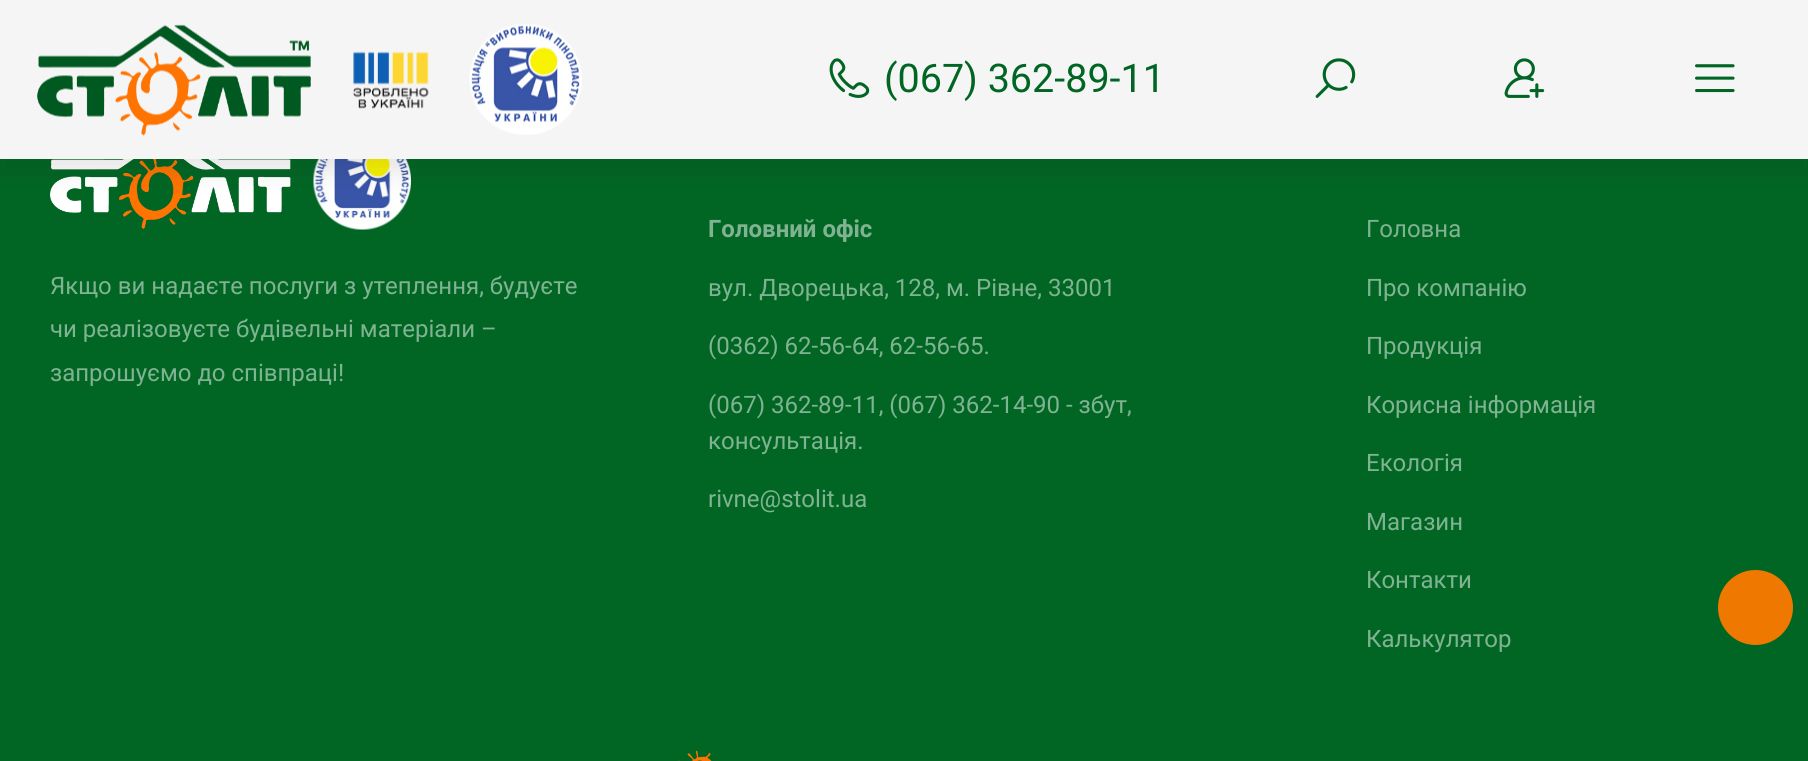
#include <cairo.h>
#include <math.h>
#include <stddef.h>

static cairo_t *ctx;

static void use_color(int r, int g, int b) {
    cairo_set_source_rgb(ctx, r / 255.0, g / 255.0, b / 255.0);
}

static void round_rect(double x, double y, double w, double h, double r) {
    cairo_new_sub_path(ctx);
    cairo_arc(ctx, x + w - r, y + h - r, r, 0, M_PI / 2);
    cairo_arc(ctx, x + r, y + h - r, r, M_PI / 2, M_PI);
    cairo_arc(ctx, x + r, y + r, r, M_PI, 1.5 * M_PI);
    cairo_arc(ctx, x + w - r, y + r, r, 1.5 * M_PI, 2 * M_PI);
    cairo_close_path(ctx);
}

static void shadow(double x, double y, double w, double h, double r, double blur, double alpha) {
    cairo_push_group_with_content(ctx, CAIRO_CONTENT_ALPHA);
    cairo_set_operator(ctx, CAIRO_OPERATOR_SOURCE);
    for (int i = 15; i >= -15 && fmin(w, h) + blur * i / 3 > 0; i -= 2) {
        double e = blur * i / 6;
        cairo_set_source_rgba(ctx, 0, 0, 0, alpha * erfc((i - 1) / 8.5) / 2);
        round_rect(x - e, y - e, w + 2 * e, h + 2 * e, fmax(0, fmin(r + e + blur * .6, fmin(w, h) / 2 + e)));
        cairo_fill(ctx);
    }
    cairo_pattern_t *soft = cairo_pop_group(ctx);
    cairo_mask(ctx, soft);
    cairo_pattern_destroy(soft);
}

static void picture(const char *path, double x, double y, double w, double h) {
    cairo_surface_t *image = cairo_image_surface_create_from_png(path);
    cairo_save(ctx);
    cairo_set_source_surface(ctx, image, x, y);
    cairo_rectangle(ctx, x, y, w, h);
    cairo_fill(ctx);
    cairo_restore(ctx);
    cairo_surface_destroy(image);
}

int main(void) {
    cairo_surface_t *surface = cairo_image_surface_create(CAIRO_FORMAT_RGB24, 1808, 761);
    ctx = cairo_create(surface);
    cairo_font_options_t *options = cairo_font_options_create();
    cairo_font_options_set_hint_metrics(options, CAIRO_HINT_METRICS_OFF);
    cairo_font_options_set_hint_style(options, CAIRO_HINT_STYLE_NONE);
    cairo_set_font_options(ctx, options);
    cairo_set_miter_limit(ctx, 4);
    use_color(1, 102, 36);
    cairo_paint(ctx);
    picture("img8.png", 50, 159, 241, 70);
    picture("img9.png", 313, 159, 98, 71);
    use_color(25, 25, 25);
    shadow(0, 15, 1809, 159, 0, 11, 0.1);
    use_color(245, 245, 245);
    cairo_rectangle(ctx, 0, 0, 1808, 159);
    cairo_fill(ctx);
    picture("img1.png", 37, 24, 274, 112);
    picture("img2.png", 353, 51, 76, 58);
    picture("img3.png", 469, 24, 113, 111);
    picture("img4.png", 829, 58, 41, 40);
    cairo_select_font_face(ctx, "Roboto", CAIRO_FONT_SLANT_NORMAL, CAIRO_FONT_WEIGHT_NORMAL);
    cairo_set_font_size(ctx, 39.5);
    use_color(1, 102, 36);
    cairo_move_to(ctx, 884, 92);
    cairo_show_text(ctx, "(067) 362-89-11");
    picture("img5.png", 1315, 58, 41, 40);
    picture("img6.png", 1504, 58, 41, 40);
    picture("img7.png", 1695, 64, 40, 29);
    cairo_set_font_size(ctx, 24);
    use_color(128, 179, 146);
    cairo_move_to(ctx, 50, 294);
    cairo_show_text(ctx, "Якщо ви надаєте послуги з утеплення, будуєте");
    cairo_move_to(ctx, 50, 337);
    cairo_show_text(ctx, "чи реалізовуєте будівельні матеріали –");
    cairo_move_to(ctx, 50, 381);
    cairo_show_text(ctx, "запрошуємо до співпраці!");
    cairo_select_font_face(ctx, "Roboto", CAIRO_FONT_SLANT_NORMAL, CAIRO_FONT_WEIGHT_BOLD);
    cairo_move_to(ctx, 708, 237);
    cairo_show_text(ctx, "Головний офіс");
    cairo_select_font_face(ctx, "Roboto", CAIRO_FONT_SLANT_NORMAL, CAIRO_FONT_WEIGHT_NORMAL);
    cairo_move_to(ctx, 708, 296);
    cairo_show_text(ctx, "вул. Дворецька, 128, м. Рівне, 33001");
    cairo_move_to(ctx, 708, 354);
    cairo_show_text(ctx, "(0362) 62-56-64, 62-56-65.");
    cairo_move_to(ctx, 708, 413);
    cairo_show_text(ctx, "(067) 362-89-11, (067) 362-14-90 - збут,");
    cairo_move_to(ctx, 708, 449);
    cairo_show_text(ctx, "консультація.");
    cairo_move_to(ctx, 708, 507);
    cairo_show_text(ctx, "rivne@stolit.ua");
    cairo_move_to(ctx, 1366, 237);
    cairo_show_text(ctx, "Головна");
    cairo_move_to(ctx, 1366, 296);
    cairo_show_text(ctx, "Про компанію");
    cairo_move_to(ctx, 1366, 354);
    cairo_show_text(ctx, "Продукція");
    cairo_move_to(ctx, 1366, 413);
    cairo_show_text(ctx, "Корисна інформація");
    cairo_move_to(ctx, 1366, 471);
    cairo_show_text(ctx, "Екологія");
    cairo_move_to(ctx, 1366, 530);
    cairo_show_text(ctx, "Магазин");
    cairo_move_to(ctx, 1366, 588);
    cairo_show_text(ctx, "Контакти");
    cairo_move_to(ctx, 1366, 647);
    cairo_show_text(ctx, "Калькулятор");
    picture("img10.png", 678, 750, 34, 11);
    use_color(239, 120, 0);
    cairo_arc(ctx, 1755.5, 607.5, 37.5, 0, 2 * M_PI);
    cairo_fill(ctx);
    cairo_surface_write_to_png(surface, "result.png");
    cairo_font_options_destroy(options);
    cairo_destroy(ctx);
    cairo_surface_destroy(surface);
    return 0;
}
